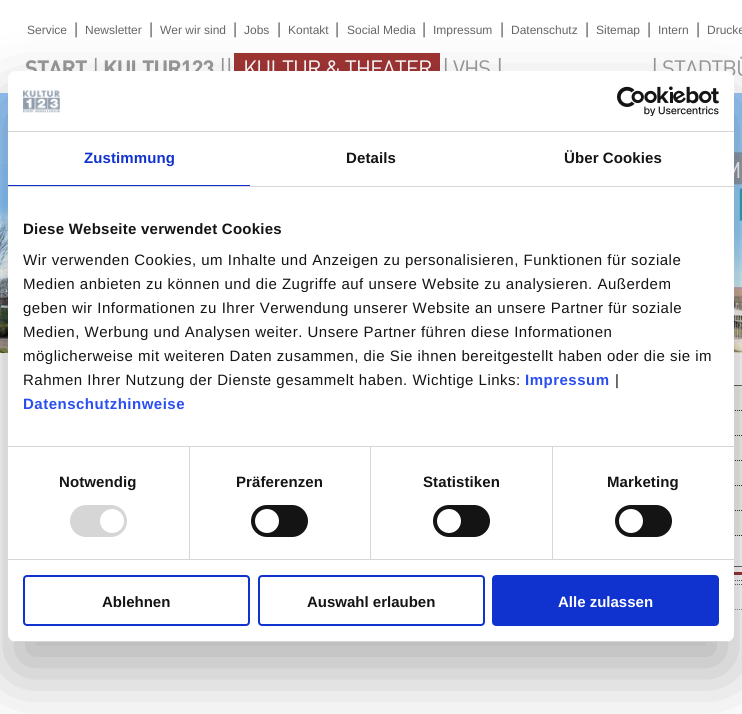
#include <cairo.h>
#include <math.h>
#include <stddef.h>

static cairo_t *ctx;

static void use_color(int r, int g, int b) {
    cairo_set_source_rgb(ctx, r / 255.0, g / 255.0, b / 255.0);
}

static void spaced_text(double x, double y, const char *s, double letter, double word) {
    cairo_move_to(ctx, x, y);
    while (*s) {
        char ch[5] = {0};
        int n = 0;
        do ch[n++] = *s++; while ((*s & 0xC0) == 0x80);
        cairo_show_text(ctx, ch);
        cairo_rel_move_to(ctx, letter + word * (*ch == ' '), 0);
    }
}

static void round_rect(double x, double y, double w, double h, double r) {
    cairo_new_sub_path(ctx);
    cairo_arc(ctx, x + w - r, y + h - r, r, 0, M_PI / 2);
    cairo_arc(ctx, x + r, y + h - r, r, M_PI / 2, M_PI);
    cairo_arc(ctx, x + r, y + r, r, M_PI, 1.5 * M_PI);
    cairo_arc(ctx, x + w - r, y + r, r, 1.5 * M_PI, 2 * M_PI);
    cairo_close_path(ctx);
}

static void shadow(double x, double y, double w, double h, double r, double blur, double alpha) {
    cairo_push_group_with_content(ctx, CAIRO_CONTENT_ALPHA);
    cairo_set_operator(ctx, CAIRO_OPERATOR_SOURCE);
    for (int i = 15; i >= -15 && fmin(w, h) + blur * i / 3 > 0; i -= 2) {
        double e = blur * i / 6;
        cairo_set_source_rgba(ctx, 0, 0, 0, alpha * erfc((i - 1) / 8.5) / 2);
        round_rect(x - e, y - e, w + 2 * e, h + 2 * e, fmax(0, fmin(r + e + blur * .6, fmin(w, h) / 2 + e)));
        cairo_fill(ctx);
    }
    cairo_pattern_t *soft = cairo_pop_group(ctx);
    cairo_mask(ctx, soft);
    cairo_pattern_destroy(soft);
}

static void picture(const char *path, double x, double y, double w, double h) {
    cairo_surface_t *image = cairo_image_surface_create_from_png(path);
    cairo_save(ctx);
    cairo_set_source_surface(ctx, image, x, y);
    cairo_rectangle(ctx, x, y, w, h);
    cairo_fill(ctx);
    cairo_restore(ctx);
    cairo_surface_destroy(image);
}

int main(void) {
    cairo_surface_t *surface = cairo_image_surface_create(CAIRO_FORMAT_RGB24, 742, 714);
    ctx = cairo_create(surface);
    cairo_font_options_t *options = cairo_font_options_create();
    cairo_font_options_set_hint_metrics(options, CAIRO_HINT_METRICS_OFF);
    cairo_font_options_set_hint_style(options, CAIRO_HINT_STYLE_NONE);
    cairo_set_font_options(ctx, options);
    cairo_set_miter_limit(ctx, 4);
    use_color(255, 255, 255);
    cairo_paint(ctx);
    cairo_select_font_face(ctx, "Liberation Sans", CAIRO_FONT_SLANT_NORMAL, CAIRO_FONT_WEIGHT_NORMAL);
    cairo_set_font_size(ctx, 12);
    use_color(102, 102, 102);
    cairo_move_to(ctx, 27, 34);
    cairo_show_text(ctx, "Service");
    cairo_set_font_size(ctx, 16);
    cairo_move_to(ctx, 74, 34);
    cairo_show_text(ctx, "|");
    cairo_set_font_size(ctx, 12);
    cairo_move_to(ctx, 85, 34);
    cairo_show_text(ctx, "Newsletter");
    cairo_set_font_size(ctx, 16);
    cairo_move_to(ctx, 149, 34);
    cairo_show_text(ctx, "|");
    cairo_set_font_size(ctx, 12);
    cairo_move_to(ctx, 160, 34);
    cairo_show_text(ctx, "Wer wir sind");
    cairo_set_font_size(ctx, 16);
    cairo_move_to(ctx, 233, 34);
    cairo_show_text(ctx, "|");
    cairo_set_font_size(ctx, 12);
    cairo_move_to(ctx, 244, 34);
    cairo_show_text(ctx, "Jobs");
    cairo_set_font_size(ctx, 16);
    cairo_move_to(ctx, 277, 34);
    cairo_show_text(ctx, "|");
    cairo_set_font_size(ctx, 12);
    cairo_move_to(ctx, 288, 34);
    cairo_show_text(ctx, "Kontakt");
    cairo_set_font_size(ctx, 16);
    cairo_move_to(ctx, 335, 34);
    cairo_show_text(ctx, "|");
    cairo_set_font_size(ctx, 12);
    cairo_move_to(ctx, 347, 34);
    cairo_show_text(ctx, "Social Media");
    cairo_set_font_size(ctx, 16);
    cairo_move_to(ctx, 422, 34);
    cairo_show_text(ctx, "|");
    cairo_set_font_size(ctx, 12);
    cairo_move_to(ctx, 433, 34);
    cairo_show_text(ctx, "Impressum");
    cairo_set_font_size(ctx, 16);
    cairo_move_to(ctx, 500, 34);
    cairo_show_text(ctx, "|");
    cairo_set_font_size(ctx, 12);
    cairo_move_to(ctx, 511, 34);
    cairo_show_text(ctx, "Datenschutz");
    cairo_set_font_size(ctx, 16);
    cairo_move_to(ctx, 585, 34);
    cairo_show_text(ctx, "|");
    cairo_set_font_size(ctx, 12);
    cairo_move_to(ctx, 596, 34);
    cairo_show_text(ctx, "Sitemap");
    cairo_set_font_size(ctx, 16);
    cairo_move_to(ctx, 647, 34);
    cairo_show_text(ctx, "|");
    cairo_set_font_size(ctx, 12);
    cairo_move_to(ctx, 658, 34);
    cairo_show_text(ctx, "Intern");
    cairo_set_font_size(ctx, 16);
    cairo_move_to(ctx, 696, 34);
    cairo_show_text(ctx, "|");
    cairo_set_font_size(ctx, 12);
    cairo_move_to(ctx, 707, 34);
    cairo_show_text(ctx, "Drucke");
    cairo_select_font_face(ctx, "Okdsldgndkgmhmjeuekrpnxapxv", CAIRO_FONT_SLANT_NORMAL, CAIRO_FONT_WEIGHT_BOLD);
    cairo_set_font_size(ctx, 22);
    use_color(153, 153, 153);
    spaced_text(25, 76, "START", -1, 0);
    cairo_select_font_face(ctx, "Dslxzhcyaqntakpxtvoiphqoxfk", CAIRO_FONT_SLANT_NORMAL, CAIRO_FONT_WEIGHT_NORMAL);
    cairo_set_font_size(ctx, 23);
    spaced_text(92, 76, "|", -1, 0);
    cairo_select_font_face(ctx, "Okdsldgndkgmhmjeuekrpnxapxv", CAIRO_FONT_SLANT_NORMAL, CAIRO_FONT_WEIGHT_BOLD);
    cairo_set_font_size(ctx, 22);
    spaced_text(103, 76, "KULTUR123", -1, 0);
    cairo_select_font_face(ctx, "Dslxzhcyaqntakpxtvoiphqoxfk", CAIRO_FONT_SLANT_NORMAL, CAIRO_FONT_WEIGHT_NORMAL);
    cairo_set_font_size(ctx, 23);
    spaced_text(219, 76, "||", -1, 0);
    use_color(159, 52, 52);
    cairo_rectangle(ctx, 234, 53, 206, 18);
    cairo_fill(ctx);
    cairo_set_font_size(ctx, 22);
    use_color(255, 255, 255);
    spaced_text(243, 76, "KULTUR & THEATER", -1, 0);
    cairo_set_font_size(ctx, 23);
    use_color(153, 153, 153);
    spaced_text(442, 76, "|", -1, 0);
    cairo_set_font_size(ctx, 22);
    spaced_text(453, 76, "VHS", -1, 0);
    cairo_set_font_size(ctx, 23);
    spaced_text(496, 76, "|", -1, 0);
    spaced_text(651, 76, "|", -1, 0);
    cairo_set_font_size(ctx, 22);
    spaced_text(662, 76, "STADTBÜ", -1, 0);
    picture("img1.png", 0, 93, 742, 260);
    use_color(244, 244, 240);
    cairo_rectangle(ctx, 734, 386, 8, 150);
    cairo_fill(ctx);
    use_color(102, 102, 102);
    cairo_rectangle(ctx, 734, 385, 8, 1);
    cairo_fill(ctx);
    cairo_new_path(ctx);
    cairo_move_to(ctx, 27, 410.5);
    cairo_line_to(ctx, 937, 410.5);
    use_color(51, 51, 51);
    cairo_set_line_width(ctx, 1);
    cairo_set_dash(ctx, (double[]){1, 1}, 2, 0);
    cairo_stroke(ctx);
    cairo_new_path(ctx);
    cairo_move_to(ctx, 27, 435.5);
    cairo_line_to(ctx, 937, 435.5);
    cairo_stroke(ctx);
    cairo_new_path(ctx);
    cairo_move_to(ctx, 27, 460.5);
    cairo_line_to(ctx, 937, 460.5);
    cairo_stroke(ctx);
    cairo_new_path(ctx);
    cairo_move_to(ctx, 27, 485.5);
    cairo_line_to(ctx, 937, 485.5);
    cairo_stroke(ctx);
    cairo_new_path(ctx);
    cairo_move_to(ctx, 27, 510.5);
    cairo_line_to(ctx, 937, 510.5);
    cairo_stroke(ctx);
    cairo_new_path(ctx);
    cairo_move_to(ctx, 27, 535.5);
    cairo_line_to(ctx, 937, 535.5);
    cairo_stroke(ctx);
    use_color(102, 102, 102);
    cairo_rectangle(ctx, 734, 566, 8, 1);
    cairo_fill(ctx);
    use_color(159, 52, 52);
    cairo_rectangle(ctx, 734, 572, 8, 3);
    cairo_fill(ctx);
    cairo_new_path(ctx);
    cairo_move_to(ctx, 27, 580.5);
    cairo_line_to(ctx, 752, 580.5);
    use_color(102, 102, 102);
    cairo_stroke(ctx);
    cairo_new_path(ctx);
    cairo_move_to(ctx, 27, 584.5);
    cairo_line_to(ctx, 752, 584.5);
    cairo_stroke(ctx);
    cairo_new_path(ctx);
    cairo_move_to(ctx, 27, 609.5);
    cairo_line_to(ctx, 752, 609.5);
    use_color(153, 153, 153);
    cairo_stroke(ctx);
    use_color(0, 0, 0);
    shadow(8, 103, 726, 571, 8, 34, 0.3);
    use_color(255, 255, 255);
    round_rect(8, 71, 726, 571, 8);
    cairo_fill(ctx);
    use_color(214, 214, 214);
    cairo_rectangle(ctx, 8, 131, 726, 1);
    cairo_fill(ctx);
    picture("img2.png", 23, 90, 37, 23);
    picture("img3.png", 617, 86, 102, 30);
    cairo_rectangle(ctx, 8, 186, 726, 1);
    cairo_fill(ctx);
    use_color(16, 50, 207);
    cairo_rectangle(ctx, 8, 185, 242, 1);
    cairo_fill(ctx);
    cairo_select_font_face(ctx, "Liberation Sans", CAIRO_FONT_SLANT_NORMAL, CAIRO_FONT_WEIGHT_BOLD);
    cairo_set_font_size(ctx, 15);
    spaced_text(84, 163, "Zustimmung", 0.1, 0);
    use_color(20, 20, 20);
    spaced_text(346, 163, "Details", 0.1, 0);
    spaced_text(564, 163, "Über Cookies", 0.1, 0);
    use_color(214, 214, 214);
    cairo_rectangle(ctx, 8, 446, 726, 1);
    cairo_fill(ctx);
    use_color(20, 20, 20);
    spaced_text(23, 234, "Diese Webseite verwendet Cookies", 0.25, 0);
    cairo_select_font_face(ctx, "Liberation Sans", CAIRO_FONT_SLANT_NORMAL, CAIRO_FONT_WEIGHT_NORMAL);
    spaced_text(23, 265, "Wir verwenden Cookies, um Inhalte und Anzeigen zu personalisieren, Funktionen für soziale", 0.5, 0);
    spaced_text(23, 289, "Medien anbieten zu können und die Zugriffe auf unsere Website zu analysieren. Außerdem", 0.5, 0);
    spaced_text(23, 313, "geben wir Informationen zu Ihrer Verwendung unserer Website an unsere Partner für soziale", 0.5, 0);
    spaced_text(23, 337, "Medien, Werbung und Analysen weiter. Unsere Partner führen diese Informationen", 0.5, 0);
    spaced_text(23, 361, "möglicherweise mit weiteren Daten zusammen, die Sie ihnen bereitgestellt haben oder die sie im", 0.5, 0);
    spaced_text(23, 385, "Rahmen Ihrer Nutzung der Dienste gesammelt haben. Wichtige Links:", 0.5, 0);
    cairo_select_font_face(ctx, "Liberation Sans", CAIRO_FONT_SLANT_NORMAL, CAIRO_FONT_WEIGHT_BOLD);
    use_color(42, 78, 239);
    spaced_text(525, 385, "Impressum", 0.5, 0);
    cairo_select_font_face(ctx, "Liberation Sans", CAIRO_FONT_SLANT_NORMAL, CAIRO_FONT_WEIGHT_NORMAL);
    use_color(20, 20, 20);
    spaced_text(615, 385, "|", 0.5, 0);
    cairo_select_font_face(ctx, "Liberation Sans", CAIRO_FONT_SLANT_NORMAL, CAIRO_FONT_WEIGHT_BOLD);
    use_color(42, 78, 239);
    spaced_text(23, 409, "Datenschutzhinweise", 0.5, 0);
    use_color(214, 214, 214);
    cairo_rectangle(ctx, 8, 559, 726, 1);
    cairo_fill(ctx);
    cairo_rectangle(ctx, 189, 447, 1, 112);
    cairo_fill(ctx);
    use_color(20, 20, 20);
    spaced_text(59, 487, "Notwendig", 0.1, 0);
    use_color(214, 214, 214);
    round_rect(70, 505, 57, 32, 16);
    cairo_fill(ctx);
    use_color(255, 255, 255);
    cairo_arc(ctx, 112, 521, 12, 0, 2 * M_PI);
    cairo_fill(ctx);
    use_color(214, 214, 214);
    cairo_rectangle(ctx, 370, 447, 1, 112);
    cairo_fill(ctx);
    use_color(20, 20, 20);
    spaced_text(236, 487, "Präferenzen", 0.1, 0);
    round_rect(251, 505, 57, 32, 16);
    cairo_fill(ctx);
    use_color(255, 255, 255);
    cairo_arc(ctx, 267, 521, 12, 0, 2 * M_PI);
    cairo_fill(ctx);
    use_color(214, 214, 214);
    cairo_rectangle(ctx, 552, 447, 1, 112);
    cairo_fill(ctx);
    use_color(20, 20, 20);
    spaced_text(423, 487, "Statistiken", 0.1, 0);
    round_rect(433, 505, 57, 32, 16);
    cairo_fill(ctx);
    use_color(255, 255, 255);
    cairo_arc(ctx, 449, 521, 12, 0, 2 * M_PI);
    cairo_fill(ctx);
    use_color(20, 20, 20);
    spaced_text(607, 487, "Marketing", 0.1, 0);
    round_rect(615, 505, 57, 32, 16);
    cairo_fill(ctx);
    use_color(255, 255, 255);
    cairo_arc(ctx, 631, 521, 12, 0, 2 * M_PI);
    cairo_fill(ctx);
    cairo_save(ctx);
    round_rect(8, 71, 726, 571, 8);
    cairo_clip(ctx);
    use_color(214, 214, 214);
    cairo_rectangle(ctx, 8, 641, 726, 1);
    cairo_fill(ctx);
    cairo_restore(ctx);
    round_rect(24, 576, 225, 49, 3);
    use_color(16, 50, 207);
    cairo_set_line_width(ctx, 2);
    cairo_set_dash(ctx, NULL, 0, 0);
    cairo_stroke(ctx);
    use_color(20, 20, 20);
    cairo_move_to(ctx, 102, 607);
    cairo_show_text(ctx, "Ablehnen");
    round_rect(259, 576, 225, 49, 3);
    use_color(16, 50, 207);
    cairo_stroke(ctx);
    use_color(20, 20, 20);
    cairo_move_to(ctx, 307, 607);
    cairo_show_text(ctx, "Auswahl erlauben");
    use_color(16, 50, 207);
    round_rect(493, 576, 225, 49, 3);
    cairo_fill_preserve(ctx);
    cairo_stroke(ctx);
    use_color(255, 255, 255);
    cairo_move_to(ctx, 558, 607);
    cairo_show_text(ctx, "Alle zulassen");
    cairo_surface_write_to_png(surface, "result.png");
    cairo_font_options_destroy(options);
    cairo_destroy(ctx);
    cairo_surface_destroy(surface);
    return 0;
}
